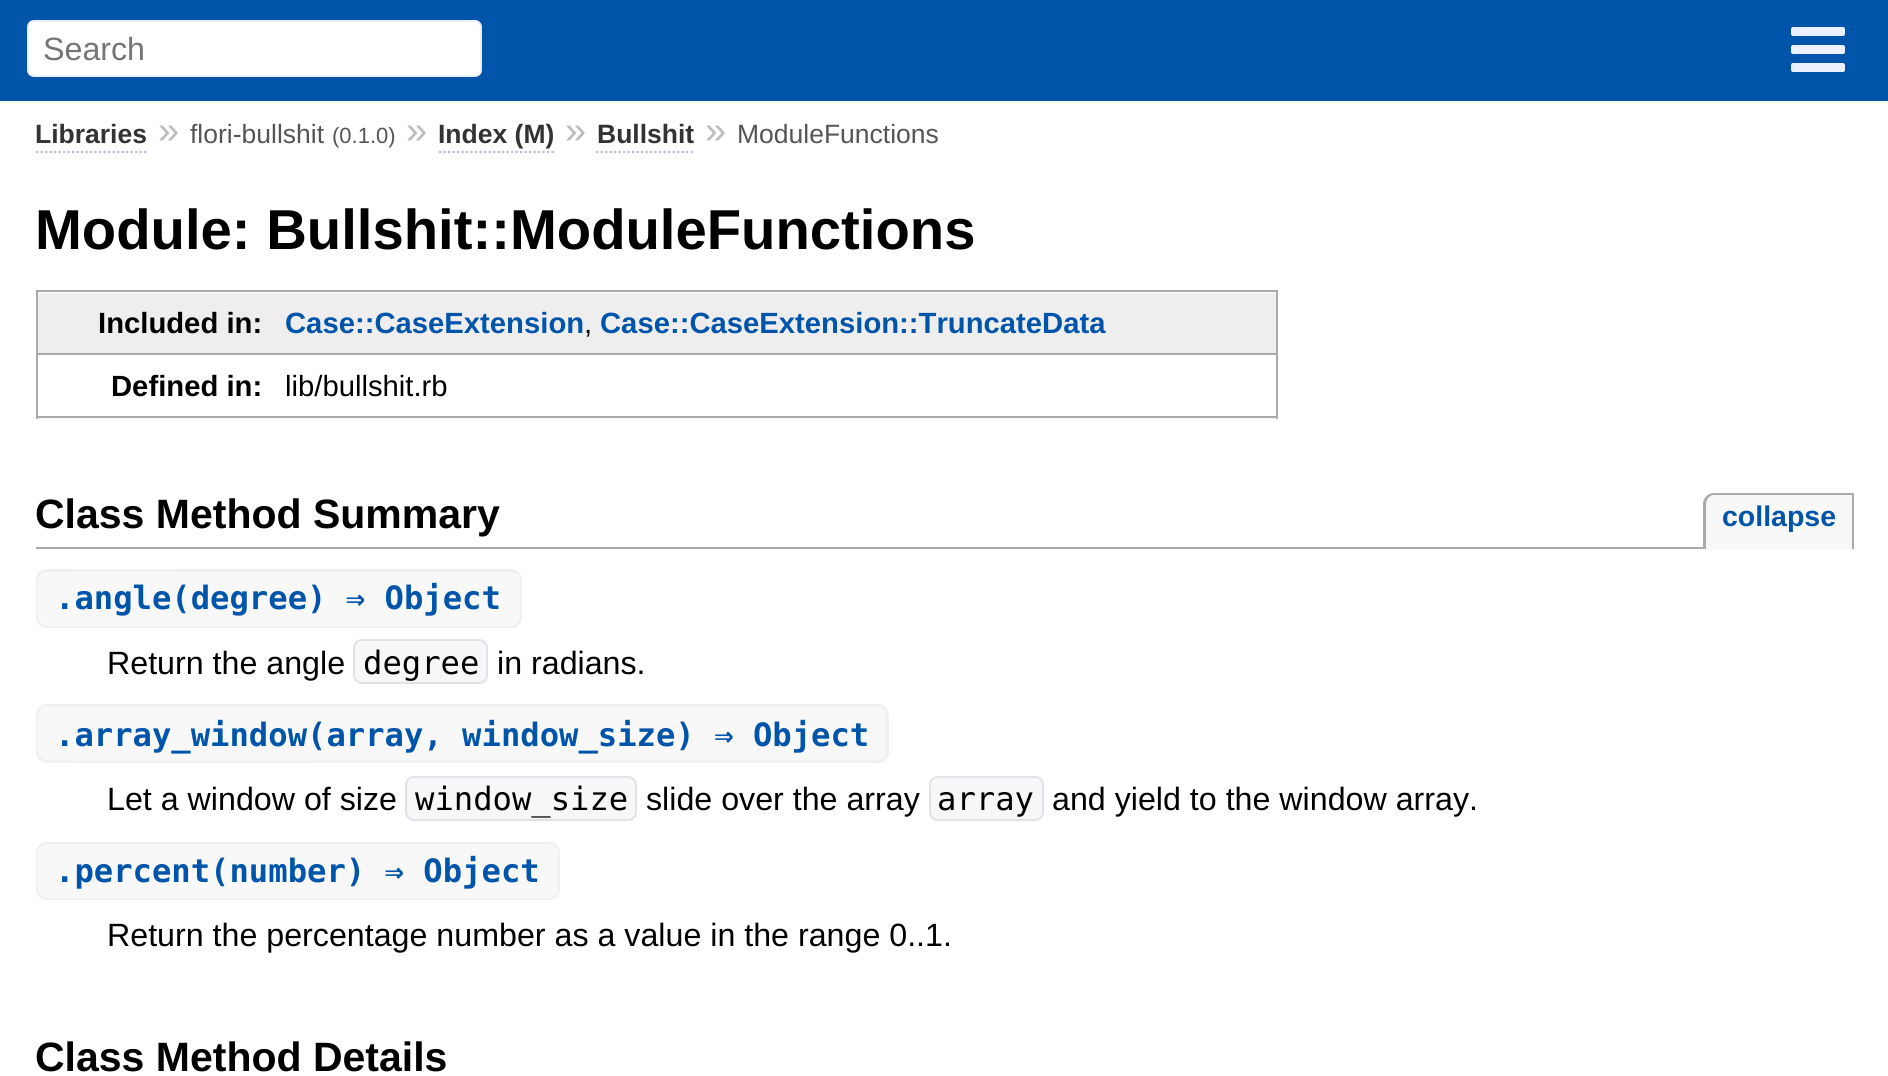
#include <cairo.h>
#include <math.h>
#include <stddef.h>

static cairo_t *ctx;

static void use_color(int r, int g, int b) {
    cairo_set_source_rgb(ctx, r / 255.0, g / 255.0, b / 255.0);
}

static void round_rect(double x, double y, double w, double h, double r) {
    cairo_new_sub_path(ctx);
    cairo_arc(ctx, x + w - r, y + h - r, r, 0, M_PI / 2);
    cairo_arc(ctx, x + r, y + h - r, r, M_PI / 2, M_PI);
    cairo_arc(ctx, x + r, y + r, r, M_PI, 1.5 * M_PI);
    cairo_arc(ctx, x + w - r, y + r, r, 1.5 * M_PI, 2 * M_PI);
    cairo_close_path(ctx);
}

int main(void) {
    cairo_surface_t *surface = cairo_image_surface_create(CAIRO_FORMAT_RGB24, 1888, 1076);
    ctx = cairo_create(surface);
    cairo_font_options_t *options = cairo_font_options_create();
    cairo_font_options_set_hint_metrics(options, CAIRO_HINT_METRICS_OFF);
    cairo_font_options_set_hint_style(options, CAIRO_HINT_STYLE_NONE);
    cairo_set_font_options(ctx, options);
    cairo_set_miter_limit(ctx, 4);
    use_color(255, 255, 255);
    cairo_paint(ctx);
    use_color(0, 85, 170);
    cairo_rectangle(ctx, 0, 0, 1888, 101);
    cairo_fill(ctx);
    use_color(255, 255, 255);
    round_rect(28, 21, 453, 55, 6);
    cairo_fill_preserve(ctx);
    use_color(234, 240, 255);
    cairo_stroke(ctx);
    cairo_select_font_face(ctx, "Liberation Sans", CAIRO_FONT_SLANT_NORMAL, CAIRO_FONT_WEIGHT_NORMAL);
    cairo_set_font_size(ctx, 32.2);
    use_color(117, 117, 117);
    cairo_move_to(ctx, 43, 60);
    cairo_show_text(ctx, "Search");
    use_color(234, 240, 255);
    round_rect(1791, 27, 54, 9, 2);
    cairo_fill(ctx);
    round_rect(1791, 45, 54, 9, 2);
    cairo_fill(ctx);
    round_rect(1791, 63, 54, 9, 2);
    cairo_fill(ctx);
    cairo_select_font_face(ctx, "Liberation Sans", CAIRO_FONT_SLANT_NORMAL, CAIRO_FONT_WEIGHT_BOLD);
    cairo_set_font_size(ctx, 26.5);
    use_color(51, 51, 51);
    cairo_move_to(ctx, 35, 143);
    cairo_show_text(ctx, "Libraries");
    cairo_new_path(ctx);
    cairo_move_to(ctx, 36, 152);
    cairo_line_to(ctx, 148.5, 152);
    use_color(187, 187, 221);
    cairo_set_line_width(ctx, 2.2);
    cairo_set_dash(ctx, (double[]){2.25, 2.25}, 2, 0);
    cairo_stroke(ctx);
    cairo_select_font_face(ctx, "Liberation Sans", CAIRO_FONT_SLANT_NORMAL, CAIRO_FONT_WEIGHT_NORMAL);
    cairo_set_font_size(ctx, 38);
    use_color(187, 187, 187);
    cairo_move_to(ctx, 158, 143);
    cairo_show_text(ctx, "»");
    cairo_set_font_size(ctx, 26.5);
    use_color(85, 85, 85);
    cairo_move_to(ctx, 190, 143);
    cairo_show_text(ctx, "flori-bullshit");
    cairo_set_font_size(ctx, 22);
    cairo_move_to(ctx, 332, 143);
    cairo_show_text(ctx, "(0.1.0)");
    cairo_set_font_size(ctx, 38);
    use_color(187, 187, 187);
    cairo_move_to(ctx, 406, 143);
    cairo_show_text(ctx, "»");
    cairo_select_font_face(ctx, "Liberation Sans", CAIRO_FONT_SLANT_NORMAL, CAIRO_FONT_WEIGHT_BOLD);
    cairo_set_font_size(ctx, 26.5);
    use_color(51, 51, 51);
    cairo_move_to(ctx, 438, 143);
    cairo_show_text(ctx, "Index (M)");
    cairo_new_path(ctx);
    cairo_move_to(ctx, 439, 152);
    cairo_line_to(ctx, 556, 152);
    use_color(187, 187, 221);
    cairo_stroke(ctx);
    cairo_select_font_face(ctx, "Liberation Sans", CAIRO_FONT_SLANT_NORMAL, CAIRO_FONT_WEIGHT_NORMAL);
    cairo_set_font_size(ctx, 38);
    use_color(187, 187, 187);
    cairo_move_to(ctx, 565, 143);
    cairo_show_text(ctx, "»");
    cairo_select_font_face(ctx, "Liberation Sans", CAIRO_FONT_SLANT_NORMAL, CAIRO_FONT_WEIGHT_BOLD);
    cairo_set_font_size(ctx, 26.5);
    use_color(51, 51, 51);
    cairo_move_to(ctx, 597, 143);
    cairo_show_text(ctx, "Bullshit");
    cairo_new_path(ctx);
    cairo_move_to(ctx, 596, 152);
    cairo_line_to(ctx, 695, 152);
    use_color(187, 187, 221);
    cairo_stroke(ctx);
    cairo_select_font_face(ctx, "Liberation Sans", CAIRO_FONT_SLANT_NORMAL, CAIRO_FONT_WEIGHT_NORMAL);
    cairo_set_font_size(ctx, 38);
    use_color(187, 187, 187);
    cairo_move_to(ctx, 705, 143);
    cairo_show_text(ctx, "»");
    cairo_set_font_size(ctx, 26.5);
    use_color(85, 85, 85);
    cairo_move_to(ctx, 737, 143);
    cairo_show_text(ctx, "ModuleFunctions");
    cairo_select_font_face(ctx, "Liberation Sans", CAIRO_FONT_SLANT_NORMAL, CAIRO_FONT_WEIGHT_BOLD);
    cairo_set_font_size(ctx, 56.25);
    use_color(0, 0, 0);
    cairo_move_to(ctx, 35, 249);
    cairo_show_text(ctx, "Module: Bullshit::ModuleFunctions");
    use_color(238, 238, 238);
    cairo_rectangle(ctx, 38, 293, 1238, 60);
    cairo_fill(ctx);
    use_color(170, 170, 170);
    cairo_rectangle(ctx, 36, 290, 1242, 2);
    cairo_fill(ctx);
    cairo_rectangle(ctx, 36, 290, 2, 63);
    cairo_fill(ctx);
    cairo_set_font_size(ctx, 29.25);
    use_color(0, 0, 0);
    cairo_move_to(ctx, 98, 333);
    cairo_show_text(ctx, "Included in:");
    use_color(170, 170, 170);
    cairo_rectangle(ctx, 36, 353, 1242, 2);
    cairo_fill(ctx);
    cairo_rectangle(ctx, 1276, 290, 2, 129);
    cairo_fill(ctx);
    use_color(0, 85, 170);
    cairo_move_to(ctx, 285, 333);
    cairo_show_text(ctx, "Case::CaseExtension");
    cairo_select_font_face(ctx, "Liberation Sans", CAIRO_FONT_SLANT_NORMAL, CAIRO_FONT_WEIGHT_NORMAL);
    use_color(0, 0, 0);
    cairo_move_to(ctx, 584, 333);
    cairo_show_text(ctx, ",");
    cairo_select_font_face(ctx, "Liberation Sans", CAIRO_FONT_SLANT_NORMAL, CAIRO_FONT_WEIGHT_BOLD);
    use_color(0, 85, 170);
    cairo_move_to(ctx, 600, 333);
    cairo_show_text(ctx, "Case::CaseExtension::TruncateData");
    use_color(170, 170, 170);
    cairo_rectangle(ctx, 36, 416, 250, 2);
    cairo_fill(ctx);
    cairo_rectangle(ctx, 36, 353, 2, 66);
    cairo_fill(ctx);
    use_color(0, 0, 0);
    cairo_move_to(ctx, 111, 396);
    cairo_show_text(ctx, "Defined in:");
    use_color(170, 170, 170);
    cairo_rectangle(ctx, 286, 416, 992, 2);
    cairo_fill(ctx);
    cairo_select_font_face(ctx, "Liberation Sans", CAIRO_FONT_SLANT_NORMAL, CAIRO_FONT_WEIGHT_NORMAL);
    use_color(0, 0, 0);
    cairo_move_to(ctx, 285, 396);
    cairo_show_text(ctx, "lib/bullshit.rb");
    use_color(170, 170, 170);
    cairo_rectangle(ctx, 36, 547, 1667, 2);
    cairo_fill(ctx);
    cairo_select_font_face(ctx, "Liberation Sans", CAIRO_FONT_SLANT_NORMAL, CAIRO_FONT_WEIGHT_BOLD);
    cairo_set_font_size(ctx, 41);
    use_color(0, 0, 0);
    cairo_move_to(ctx, 35, 528);
    cairo_show_text(ctx, "Class Method Summary");
    use_color(248, 248, 248);
    cairo_new_path(ctx);
    cairo_move_to(ctx, 1714, 493);
    cairo_line_to(ctx, 1854, 493);
    cairo_line_to(ctx, 1854, 549);
    cairo_line_to(ctx, 1703, 549);
    cairo_line_to(ctx, 1703, 504);
    cairo_curve_to(ctx, 1703, 498, 1708, 493, 1714, 493);
    cairo_close_path(ctx);
    cairo_fill(ctx);
    use_color(170, 170, 170);
    cairo_set_fill_rule(ctx, CAIRO_FILL_RULE_EVEN_ODD);
    cairo_new_path(ctx);
    cairo_move_to(ctx, 1714, 493);
    cairo_line_to(ctx, 1854, 493);
    cairo_line_to(ctx, 1854, 549);
    cairo_line_to(ctx, 1703, 549);
    cairo_line_to(ctx, 1703, 504);
    cairo_curve_to(ctx, 1703, 498, 1708, 493, 1714, 493);
    cairo_close_path(ctx);
    cairo_move_to(ctx, 1714, 495);
    cairo_line_to(ctx, 1852, 495);
    cairo_line_to(ctx, 1852, 549);
    cairo_line_to(ctx, 1706, 549);
    cairo_line_to(ctx, 1706, 504);
    cairo_curve_to(ctx, 1706, 499, 1710, 495, 1714, 495);
    cairo_close_path(ctx);
    cairo_fill(ctx);
    cairo_set_font_size(ctx, 28.5);
    use_color(0, 85, 170);
    cairo_move_to(ctx, 1722, 526);
    cairo_show_text(ctx, "collapse");
    use_color(248, 248, 248);
    cairo_new_path(ctx);
    cairo_move_to(ctx, 47, 569);
    cairo_line_to(ctx, 74, 569);
    cairo_line_to(ctx, 74, 628);
    cairo_line_to(ctx, 47, 628);
    cairo_curve_to(ctx, 41, 628, 36, 623, 36, 617);
    cairo_line_to(ctx, 36, 580);
    cairo_curve_to(ctx, 36, 574, 41, 569, 47, 569);
    cairo_close_path(ctx);
    cairo_fill(ctx);
    use_color(240, 240, 240);
    cairo_new_path(ctx);
    cairo_move_to(ctx, 47, 569);
    cairo_line_to(ctx, 74, 569);
    cairo_line_to(ctx, 74, 628);
    cairo_line_to(ctx, 47, 628);
    cairo_curve_to(ctx, 41, 628, 36, 623, 36, 616);
    cairo_line_to(ctx, 36, 580);
    cairo_curve_to(ctx, 36, 574, 41, 569, 47, 569);
    cairo_close_path(ctx);
    cairo_move_to(ctx, 47, 572);
    cairo_line_to(ctx, 74, 572);
    cairo_line_to(ctx, 74, 626);
    cairo_line_to(ctx, 47, 626);
    cairo_curve_to(ctx, 42, 626, 38, 621, 38, 616);
    cairo_line_to(ctx, 38, 580);
    cairo_curve_to(ctx, 38, 576, 42, 572, 47, 572);
    cairo_close_path(ctx);
    cairo_fill(ctx);
    use_color(248, 248, 248);
    cairo_rectangle(ctx, 74, 571, 97, 55);
    cairo_fill(ctx);
    cairo_new_path(ctx);
    cairo_move_to(ctx, 171, 569);
    cairo_line_to(ctx, 511, 569);
    cairo_curve_to(ctx, 517, 569, 522, 574, 522, 580);
    cairo_line_to(ctx, 522, 617);
    cairo_curve_to(ctx, 522, 623, 517, 628, 511, 628);
    cairo_line_to(ctx, 171, 628);
    cairo_close_path(ctx);
    cairo_fill(ctx);
    use_color(240, 240, 240);
    cairo_new_path(ctx);
    cairo_move_to(ctx, 171, 569);
    cairo_line_to(ctx, 511, 569);
    cairo_curve_to(ctx, 517, 569, 522, 574, 522, 580);
    cairo_line_to(ctx, 522, 616);
    cairo_curve_to(ctx, 522, 623, 517, 628, 511, 628);
    cairo_line_to(ctx, 171, 628);
    cairo_close_path(ctx);
    cairo_move_to(ctx, 171, 572);
    cairo_line_to(ctx, 511, 572);
    cairo_curve_to(ctx, 516, 572, 520, 576, 520, 580);
    cairo_line_to(ctx, 520, 616);
    cairo_curve_to(ctx, 520, 621, 516, 626, 511, 626);
    cairo_line_to(ctx, 171, 626);
    cairo_close_path(ctx);
    cairo_fill(ctx);
    cairo_select_font_face(ctx, "DejaVu Sans Mono", CAIRO_FONT_SLANT_NORMAL, CAIRO_FONT_WEIGHT_BOLD);
    cairo_set_font_size(ctx, 32.2);
    use_color(0, 85, 170);
    cairo_move_to(ctx, 55, 609);
    cairo_show_text(ctx, ".angle(degree) ⇒ Object");
    use_color(240, 240, 240);
    cairo_rectangle(ctx, 74, 569, 97, 2);
    cairo_fill(ctx);
    cairo_rectangle(ctx, 74, 626, 97, 2);
    cairo_fill(ctx);
    cairo_select_font_face(ctx, "Liberation Sans", CAIRO_FONT_SLANT_NORMAL, CAIRO_FONT_WEIGHT_NORMAL);
    use_color(0, 0, 0);
    cairo_move_to(ctx, 107, 674);
    cairo_show_text(ctx, "Return the angle");
    use_color(247, 247, 249);
    round_rect(354, 640, 133, 43, 8);
    cairo_fill_preserve(ctx);
    use_color(225, 225, 232);
    cairo_set_line_width(ctx, 2);
    cairo_set_dash(ctx, NULL, 0, 0);
    cairo_stroke(ctx);
    cairo_select_font_face(ctx, "DejaVu Sans Mono", CAIRO_FONT_SLANT_NORMAL, CAIRO_FONT_WEIGHT_NORMAL);
    use_color(0, 0, 0);
    cairo_move_to(ctx, 363, 674);
    cairo_show_text(ctx, "degree");
    cairo_select_font_face(ctx, "Liberation Sans", CAIRO_FONT_SLANT_NORMAL, CAIRO_FONT_WEIGHT_NORMAL);
    cairo_move_to(ctx, 497, 674);
    cairo_show_text(ctx, "in radians.");
    use_color(248, 248, 248);
    cairo_new_path(ctx);
    cairo_move_to(ctx, 47, 704);
    cairo_line_to(ctx, 74, 704);
    cairo_line_to(ctx, 74, 763);
    cairo_line_to(ctx, 47, 763);
    cairo_curve_to(ctx, 41, 763, 36, 758, 36, 752);
    cairo_line_to(ctx, 36, 715);
    cairo_curve_to(ctx, 36, 709, 41, 704, 47, 704);
    cairo_close_path(ctx);
    cairo_fill(ctx);
    use_color(240, 240, 240);
    cairo_new_path(ctx);
    cairo_move_to(ctx, 47, 704);
    cairo_line_to(ctx, 74, 704);
    cairo_line_to(ctx, 74, 763);
    cairo_line_to(ctx, 47, 763);
    cairo_curve_to(ctx, 41, 763, 36, 758, 36, 752);
    cairo_line_to(ctx, 36, 716);
    cairo_curve_to(ctx, 36, 709, 41, 704, 47, 704);
    cairo_close_path(ctx);
    cairo_move_to(ctx, 47, 706);
    cairo_line_to(ctx, 74, 706);
    cairo_line_to(ctx, 74, 760);
    cairo_line_to(ctx, 47, 760);
    cairo_curve_to(ctx, 42, 760, 38, 756, 38, 752);
    cairo_line_to(ctx, 38, 716);
    cairo_curve_to(ctx, 38, 711, 42, 706, 47, 706);
    cairo_close_path(ctx);
    cairo_fill(ctx);
    use_color(248, 248, 248);
    cairo_rectangle(ctx, 74, 706, 234, 55);
    cairo_fill(ctx);
    cairo_new_path(ctx);
    cairo_move_to(ctx, 308, 704);
    cairo_line_to(ctx, 878, 704);
    cairo_curve_to(ctx, 884, 704, 889, 709, 889, 715);
    cairo_line_to(ctx, 889, 752);
    cairo_curve_to(ctx, 889, 758, 884, 763, 878, 763);
    cairo_line_to(ctx, 308, 763);
    cairo_close_path(ctx);
    cairo_fill(ctx);
    use_color(240, 240, 240);
    cairo_new_path(ctx);
    cairo_move_to(ctx, 308, 704);
    cairo_line_to(ctx, 878, 704);
    cairo_curve_to(ctx, 884, 704, 889, 709, 889, 716);
    cairo_line_to(ctx, 889, 752);
    cairo_curve_to(ctx, 889, 758, 884, 763, 878, 763);
    cairo_line_to(ctx, 308, 763);
    cairo_close_path(ctx);
    cairo_move_to(ctx, 308, 706);
    cairo_line_to(ctx, 878, 706);
    cairo_curve_to(ctx, 882, 706, 886, 711, 886, 716);
    cairo_line_to(ctx, 886, 752);
    cairo_curve_to(ctx, 886, 756, 882, 760, 878, 760);
    cairo_line_to(ctx, 308, 760);
    cairo_close_path(ctx);
    cairo_fill(ctx);
    cairo_select_font_face(ctx, "DejaVu Sans Mono", CAIRO_FONT_SLANT_NORMAL, CAIRO_FONT_WEIGHT_BOLD);
    use_color(0, 85, 170);
    cairo_move_to(ctx, 55, 746);
    cairo_show_text(ctx, ".array_window(array, window_size) ⇒ Object");
    use_color(240, 240, 240);
    cairo_rectangle(ctx, 74, 704, 234, 2);
    cairo_fill(ctx);
    cairo_rectangle(ctx, 74, 761, 234, 2);
    cairo_fill(ctx);
    cairo_select_font_face(ctx, "Liberation Sans", CAIRO_FONT_SLANT_NORMAL, CAIRO_FONT_WEIGHT_NORMAL);
    use_color(0, 0, 0);
    cairo_move_to(ctx, 107, 810);
    cairo_show_text(ctx, "Let a window of size");
    use_color(247, 247, 249);
    round_rect(406, 777, 230, 43, 8);
    cairo_fill_preserve(ctx);
    use_color(225, 225, 232);
    cairo_stroke(ctx);
    cairo_select_font_face(ctx, "DejaVu Sans Mono", CAIRO_FONT_SLANT_NORMAL, CAIRO_FONT_WEIGHT_NORMAL);
    use_color(0, 0, 0);
    cairo_move_to(ctx, 415, 810);
    cairo_show_text(ctx, "window_size");
    cairo_select_font_face(ctx, "Liberation Sans", CAIRO_FONT_SLANT_NORMAL, CAIRO_FONT_WEIGHT_NORMAL);
    cairo_move_to(ctx, 646, 810);
    cairo_show_text(ctx, "slide over the array");
    use_color(247, 247, 249);
    round_rect(930, 777, 113, 43, 8);
    cairo_fill_preserve(ctx);
    use_color(225, 225, 232);
    cairo_stroke(ctx);
    cairo_select_font_face(ctx, "DejaVu Sans Mono", CAIRO_FONT_SLANT_NORMAL, CAIRO_FONT_WEIGHT_NORMAL);
    use_color(0, 0, 0);
    cairo_move_to(ctx, 937, 810);
    cairo_show_text(ctx, "array");
    cairo_select_font_face(ctx, "Liberation Sans", CAIRO_FONT_SLANT_NORMAL, CAIRO_FONT_WEIGHT_NORMAL);
    cairo_move_to(ctx, 1052, 810);
    cairo_show_text(ctx, "and yield to the window array.");
    use_color(248, 248, 248);
    cairo_new_path(ctx);
    cairo_move_to(ctx, 47, 842);
    cairo_line_to(ctx, 74, 842);
    cairo_line_to(ctx, 74, 900);
    cairo_line_to(ctx, 47, 900);
    cairo_curve_to(ctx, 41, 900, 36, 895, 36, 889);
    cairo_line_to(ctx, 36, 853);
    cairo_curve_to(ctx, 36, 847, 41, 842, 47, 842);
    cairo_close_path(ctx);
    cairo_fill(ctx);
    use_color(240, 240, 240);
    cairo_new_path(ctx);
    cairo_move_to(ctx, 47, 842);
    cairo_line_to(ctx, 74, 842);
    cairo_line_to(ctx, 74, 900);
    cairo_line_to(ctx, 47, 900);
    cairo_curve_to(ctx, 41, 900, 36, 895, 36, 889);
    cairo_line_to(ctx, 36, 853);
    cairo_curve_to(ctx, 36, 847, 41, 842, 47, 842);
    cairo_close_path(ctx);
    cairo_move_to(ctx, 47, 844);
    cairo_line_to(ctx, 74, 844);
    cairo_line_to(ctx, 74, 898);
    cairo_line_to(ctx, 47, 898);
    cairo_curve_to(ctx, 42, 898, 38, 894, 38, 889);
    cairo_line_to(ctx, 38, 853);
    cairo_curve_to(ctx, 38, 848, 42, 844, 47, 844);
    cairo_close_path(ctx);
    cairo_fill(ctx);
    use_color(248, 248, 248);
    cairo_rectangle(ctx, 74, 844, 135, 54);
    cairo_fill(ctx);
    cairo_new_path(ctx);
    cairo_move_to(ctx, 209, 842);
    cairo_line_to(ctx, 549, 842);
    cairo_curve_to(ctx, 555, 842, 560, 847, 560, 853);
    cairo_line_to(ctx, 560, 889);
    cairo_curve_to(ctx, 560, 895, 555, 900, 549, 900);
    cairo_line_to(ctx, 209, 900);
    cairo_close_path(ctx);
    cairo_fill(ctx);
    use_color(240, 240, 240);
    cairo_new_path(ctx);
    cairo_move_to(ctx, 209, 842);
    cairo_line_to(ctx, 549, 842);
    cairo_curve_to(ctx, 555, 842, 560, 847, 560, 853);
    cairo_line_to(ctx, 560, 889);
    cairo_curve_to(ctx, 560, 895, 555, 900, 549, 900);
    cairo_line_to(ctx, 209, 900);
    cairo_close_path(ctx);
    cairo_move_to(ctx, 209, 844);
    cairo_line_to(ctx, 549, 844);
    cairo_curve_to(ctx, 554, 844, 558, 848, 558, 853);
    cairo_line_to(ctx, 558, 889);
    cairo_curve_to(ctx, 558, 894, 554, 898, 549, 898);
    cairo_line_to(ctx, 209, 898);
    cairo_close_path(ctx);
    cairo_fill(ctx);
    cairo_select_font_face(ctx, "DejaVu Sans Mono", CAIRO_FONT_SLANT_NORMAL, CAIRO_FONT_WEIGHT_BOLD);
    use_color(0, 85, 170);
    cairo_move_to(ctx, 55, 882);
    cairo_show_text(ctx, ".percent(number) ⇒ Object");
    use_color(240, 240, 240);
    cairo_rectangle(ctx, 74, 842, 135, 2);
    cairo_fill(ctx);
    cairo_rectangle(ctx, 74, 898, 135, 2);
    cairo_fill(ctx);
    cairo_select_font_face(ctx, "Liberation Sans", CAIRO_FONT_SLANT_NORMAL, CAIRO_FONT_WEIGHT_NORMAL);
    use_color(0, 0, 0);
    cairo_move_to(ctx, 107, 946);
    cairo_show_text(ctx, "Return the percentage number as a value in the range 0..1.");
    cairo_select_font_face(ctx, "Liberation Sans", CAIRO_FONT_SLANT_NORMAL, CAIRO_FONT_WEIGHT_BOLD);
    cairo_set_font_size(ctx, 41);
    cairo_move_to(ctx, 35, 1071);
    cairo_show_text(ctx, "Class Method Details");
    cairo_surface_write_to_png(surface, "result.png");
    cairo_font_options_destroy(options);
    cairo_destroy(ctx);
    cairo_surface_destroy(surface);
    return 0;
}
